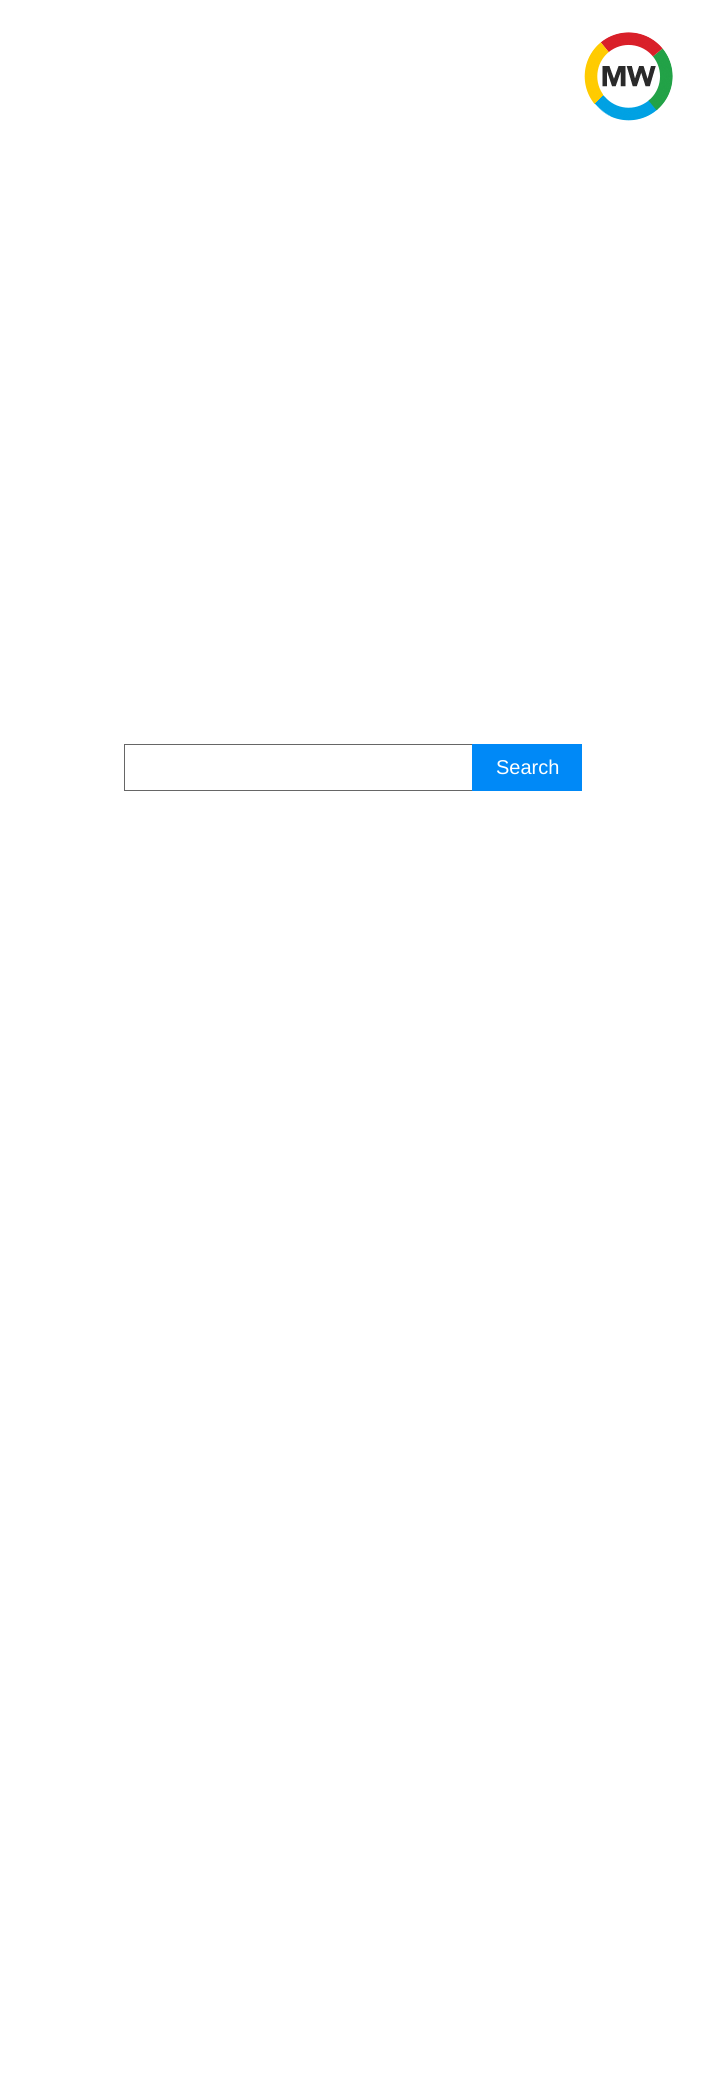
#include <cairo.h>
#include <math.h>
#include <stddef.h>

static cairo_t *ctx;

static void use_color(int r, int g, int b) {
    cairo_set_source_rgb(ctx, r / 255.0, g / 255.0, b / 255.0);
}

static void picture(const char *path, double x, double y, double w, double h) {
    cairo_surface_t *image = cairo_image_surface_create_from_png(path);
    cairo_save(ctx);
    cairo_set_source_surface(ctx, image, x, y);
    cairo_rectangle(ctx, x, y, w, h);
    cairo_fill(ctx);
    cairo_restore(ctx);
    cairo_surface_destroy(image);
}

int main(void) {
    cairo_surface_t *surface = cairo_image_surface_create(CAIRO_FORMAT_RGB24, 706, 2096);
    ctx = cairo_create(surface);
    cairo_font_options_t *options = cairo_font_options_create();
    cairo_font_options_set_hint_metrics(options, CAIRO_HINT_METRICS_OFF);
    cairo_font_options_set_hint_style(options, CAIRO_HINT_STYLE_NONE);
    cairo_set_font_options(ctx, options);
    cairo_set_miter_limit(ctx, 4);
    use_color(255, 255, 255);
    cairo_paint(ctx);
    picture("img1.png", 584, 32, 89, 89);
    use_color(102, 102, 102);
    cairo_rectangle(ctx, 124, 744, 348, 1);
    cairo_fill(ctx);
    cairo_rectangle(ctx, 124, 790, 348, 1);
    cairo_fill(ctx);
    cairo_rectangle(ctx, 124, 744, 1, 47);
    cairo_fill(ctx);
    use_color(0, 137, 247);
    cairo_rectangle(ctx, 472, 744, 110, 47);
    cairo_fill(ctx);
    cairo_select_font_face(ctx, "Liberation Sans", CAIRO_FONT_SLANT_NORMAL, CAIRO_FONT_WEIGHT_NORMAL);
    cairo_set_font_size(ctx, 20);
    use_color(255, 255, 255);
    cairo_move_to(ctx, 496, 774);
    cairo_show_text(ctx, "Search");
    cairo_surface_write_to_png(surface, "result.png");
    cairo_font_options_destroy(options);
    cairo_destroy(ctx);
    cairo_surface_destroy(surface);
    return 0;
}
